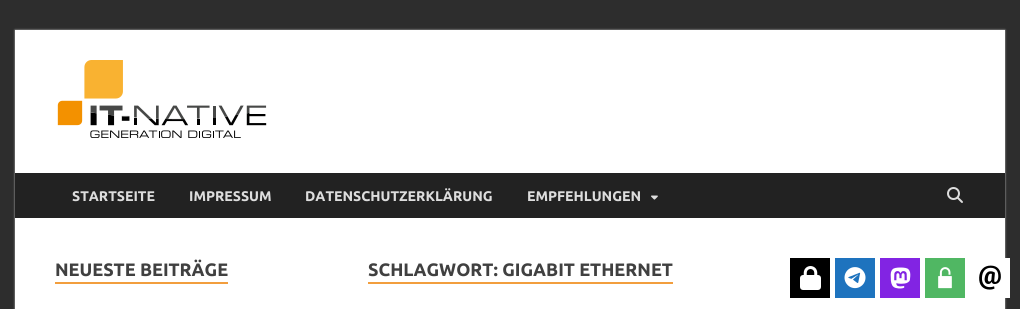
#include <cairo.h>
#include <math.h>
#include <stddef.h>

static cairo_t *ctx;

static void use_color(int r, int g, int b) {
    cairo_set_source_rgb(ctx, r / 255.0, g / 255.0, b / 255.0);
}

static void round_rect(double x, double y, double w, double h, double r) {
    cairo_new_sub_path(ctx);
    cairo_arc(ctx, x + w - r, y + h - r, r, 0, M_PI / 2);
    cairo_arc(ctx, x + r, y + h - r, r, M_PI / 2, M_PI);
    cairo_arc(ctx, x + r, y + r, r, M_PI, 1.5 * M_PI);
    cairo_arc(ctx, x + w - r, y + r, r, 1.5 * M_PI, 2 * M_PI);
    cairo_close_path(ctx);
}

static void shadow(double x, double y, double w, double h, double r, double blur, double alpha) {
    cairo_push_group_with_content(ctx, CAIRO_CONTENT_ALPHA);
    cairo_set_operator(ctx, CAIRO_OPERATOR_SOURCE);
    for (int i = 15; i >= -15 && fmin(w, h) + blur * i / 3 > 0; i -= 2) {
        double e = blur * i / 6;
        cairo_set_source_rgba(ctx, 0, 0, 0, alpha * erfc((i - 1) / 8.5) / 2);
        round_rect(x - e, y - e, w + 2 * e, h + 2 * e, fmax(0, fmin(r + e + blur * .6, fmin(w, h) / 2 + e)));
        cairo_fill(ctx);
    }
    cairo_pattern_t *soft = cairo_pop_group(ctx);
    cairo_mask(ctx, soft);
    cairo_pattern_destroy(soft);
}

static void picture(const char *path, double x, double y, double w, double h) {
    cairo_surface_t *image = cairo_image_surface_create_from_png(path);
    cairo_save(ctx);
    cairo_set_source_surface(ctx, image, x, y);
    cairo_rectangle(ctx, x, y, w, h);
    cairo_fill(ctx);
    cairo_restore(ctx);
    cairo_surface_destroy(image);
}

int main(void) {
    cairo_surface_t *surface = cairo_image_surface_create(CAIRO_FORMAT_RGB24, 1020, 309);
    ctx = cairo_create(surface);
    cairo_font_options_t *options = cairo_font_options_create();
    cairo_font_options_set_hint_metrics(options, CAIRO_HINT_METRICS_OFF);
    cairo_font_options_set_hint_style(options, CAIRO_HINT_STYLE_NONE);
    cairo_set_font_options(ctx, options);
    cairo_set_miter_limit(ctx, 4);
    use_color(45, 45, 45);
    cairo_paint(ctx);
    use_color(187, 187, 187);
    shadow(15, 30, 990, 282, 0, 1, 1);
    use_color(255, 255, 255);
    cairo_rectangle(ctx, 15, 30, 990, 279);
    cairo_fill(ctx);
    picture("img1.png", 57, 60, 210, 78);
    use_color(34, 34, 34);
    cairo_rectangle(ctx, 15, 173, 990, 45);
    cairo_fill(ctx);
    cairo_select_font_face(ctx, "Ubuntu", CAIRO_FONT_SLANT_NORMAL, CAIRO_FONT_WEIGHT_BOLD);
    cairo_set_font_size(ctx, 14);
    use_color(221, 221, 221);
    cairo_move_to(ctx, 72, 201);
    cairo_show_text(ctx, "STARTSEITE");
    cairo_move_to(ctx, 189, 201);
    cairo_show_text(ctx, "IMPRESSUM");
    cairo_move_to(ctx, 305, 201);
    cairo_show_text(ctx, "DATENSCHUTZERKLÄRUNG");
    cairo_move_to(ctx, 527, 201);
    cairo_show_text(ctx, "EMPFEHLUNGEN");
    picture("img2.png", 651, 195, 7, 5);
    picture("img3.png", 947, 187, 16, 16);
    use_color(242, 158, 62);
    cairo_rectangle(ctx, 55, 282, 173, 2);
    cairo_fill(ctx);
    cairo_set_font_size(ctx, 18);
    use_color(64, 64, 64);
    cairo_move_to(ctx, 55, 276);
    cairo_show_text(ctx, "NEUESTE BEITRÄGE");
    cairo_move_to(ctx, 368, 276);
    cairo_show_text(ctx, "SCHLAGWORT: GIGABIT ETHERNET");
    use_color(242, 158, 62);
    cairo_rectangle(ctx, 368, 282, 305, 2);
    cairo_fill(ctx);
    use_color(0, 0, 0);
    cairo_rectangle(ctx, 790, 258, 40, 40);
    cairo_fill(ctx);
    picture("img4.png", 800, 266, 21, 24);
    use_color(30, 115, 190);
    cairo_rectangle(ctx, 835, 258, 40, 40);
    cairo_fill(ctx);
    picture("img5.png", 844, 267, 22, 22);
    use_color(130, 36, 227);
    cairo_rectangle(ctx, 880, 258, 40, 40);
    cairo_fill(ctx);
    picture("img6.png", 890, 267, 21, 22);
    use_color(80, 183, 99);
    cairo_rectangle(ctx, 925, 258, 40, 40);
    cairo_fill(ctx);
    picture("img7.png", 938, 267, 14, 22);
    use_color(255, 255, 255);
    cairo_rectangle(ctx, 1005, 258, 5, 40);
    cairo_fill(ctx);
    picture("img8.png", 979, 265, 22, 25);
    cairo_surface_write_to_png(surface, "result.png");
    cairo_font_options_destroy(options);
    cairo_destroy(ctx);
    cairo_surface_destroy(surface);
    return 0;
}
